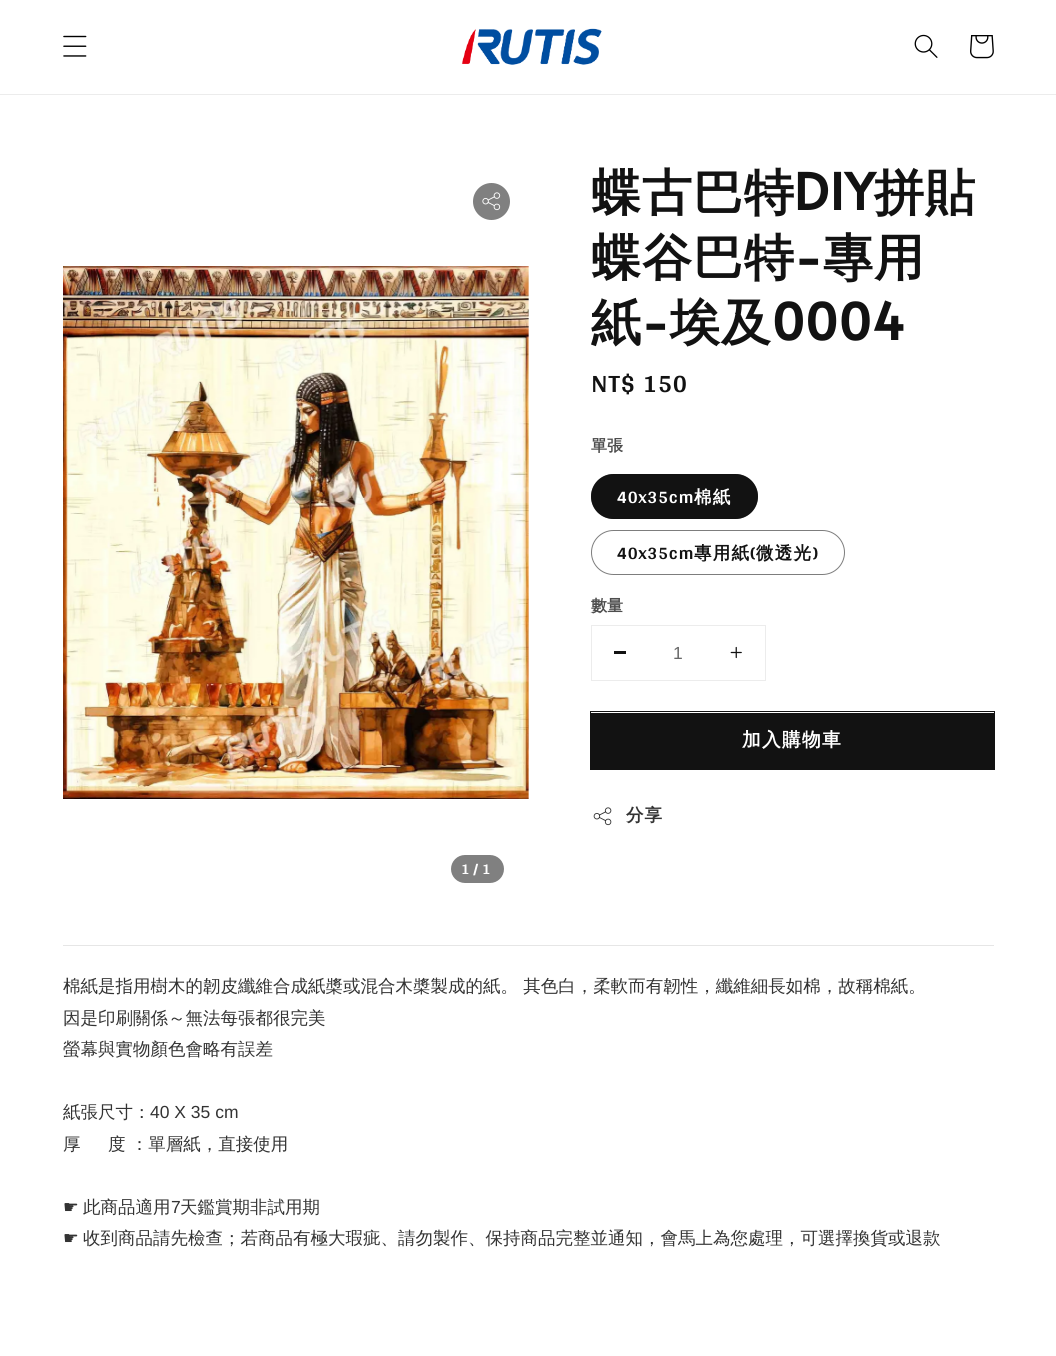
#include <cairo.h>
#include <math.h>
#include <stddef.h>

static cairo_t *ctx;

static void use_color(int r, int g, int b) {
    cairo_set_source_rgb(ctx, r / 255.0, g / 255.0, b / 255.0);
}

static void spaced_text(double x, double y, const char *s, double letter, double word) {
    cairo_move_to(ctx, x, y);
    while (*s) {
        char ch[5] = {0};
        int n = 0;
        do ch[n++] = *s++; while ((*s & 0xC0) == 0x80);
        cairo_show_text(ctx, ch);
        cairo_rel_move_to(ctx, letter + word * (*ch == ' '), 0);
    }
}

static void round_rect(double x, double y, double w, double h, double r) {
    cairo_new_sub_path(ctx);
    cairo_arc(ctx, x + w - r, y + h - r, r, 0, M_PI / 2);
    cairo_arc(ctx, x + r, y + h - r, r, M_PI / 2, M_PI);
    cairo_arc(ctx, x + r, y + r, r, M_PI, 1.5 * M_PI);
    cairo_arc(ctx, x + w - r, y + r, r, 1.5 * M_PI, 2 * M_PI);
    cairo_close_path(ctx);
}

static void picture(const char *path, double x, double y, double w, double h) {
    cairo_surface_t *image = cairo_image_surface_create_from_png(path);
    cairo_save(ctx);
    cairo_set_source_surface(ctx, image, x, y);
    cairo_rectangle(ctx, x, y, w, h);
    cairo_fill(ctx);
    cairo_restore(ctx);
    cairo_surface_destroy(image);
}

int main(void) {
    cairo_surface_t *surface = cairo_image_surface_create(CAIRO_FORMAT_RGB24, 1056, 1356);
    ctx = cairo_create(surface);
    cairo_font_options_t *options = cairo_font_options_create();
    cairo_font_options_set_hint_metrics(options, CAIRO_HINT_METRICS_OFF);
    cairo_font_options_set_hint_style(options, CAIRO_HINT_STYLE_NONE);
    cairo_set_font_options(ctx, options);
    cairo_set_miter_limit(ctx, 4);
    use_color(255, 255, 255);
    cairo_paint(ctx);
    use_color(236, 236, 236);
    cairo_rectangle(ctx, 0, 94, 1056, 1);
    cairo_fill(ctx);
    picture("img1.png", 63, 35, 24, 22);
    picture("img2.png", 461, 28, 141, 37);
    picture("img3.png", 914, 34, 24, 24);
    picture("img4.png", 970, 35, 24, 24);
    cairo_select_font_face(ctx, "WenQuanYi Zen Hei", CAIRO_FONT_SLANT_NORMAL, CAIRO_FONT_WEIGHT_BOLD);
    cairo_set_font_size(ctx, 50);
    use_color(18, 18, 18);
    spaced_text(591, 210, "蝶古巴特", 1, 0);
    cairo_select_font_face(ctx, "Alata", CAIRO_FONT_SLANT_NORMAL, CAIRO_FONT_WEIGHT_BOLD);
    spaced_text(794, 210, "DIY", 1, 0);
    cairo_select_font_face(ctx, "WenQuanYi Zen Hei", CAIRO_FONT_SLANT_NORMAL, CAIRO_FONT_WEIGHT_BOLD);
    spaced_text(874, 210, "拼貼", 1, 0);
    spaced_text(591, 275, "蝶谷巴特", 1, 0);
    cairo_select_font_face(ctx, "Alata", CAIRO_FONT_SLANT_NORMAL, CAIRO_FONT_WEIGHT_BOLD);
    spaced_text(794, 275, "-", 1, 0);
    cairo_select_font_face(ctx, "WenQuanYi Zen Hei", CAIRO_FONT_SLANT_NORMAL, CAIRO_FONT_WEIGHT_BOLD);
    spaced_text(823, 275, "專用", 1, 0);
    spaced_text(591, 340, "紙", 1, 0);
    cairo_select_font_face(ctx, "Alata", CAIRO_FONT_SLANT_NORMAL, CAIRO_FONT_WEIGHT_BOLD);
    spaced_text(641, 340, "-", 1, 0);
    cairo_select_font_face(ctx, "WenQuanYi Zen Hei", CAIRO_FONT_SLANT_NORMAL, CAIRO_FONT_WEIGHT_BOLD);
    spaced_text(670, 340, "埃及", 1, 0);
    cairo_select_font_face(ctx, "Alata", CAIRO_FONT_SLANT_NORMAL, CAIRO_FONT_WEIGHT_BOLD);
    spaced_text(772, 340, "0004", 1, 0);
    cairo_select_font_face(ctx, "Arya", CAIRO_FONT_SLANT_NORMAL, CAIRO_FONT_WEIGHT_BOLD);
    cairo_set_font_size(ctx, 25);
    spaced_text(591, 392, "NT$ 150", 1.5, 0);
    cairo_select_font_face(ctx, "WenQuanYi Zen Hei", CAIRO_FONT_SLANT_NORMAL, CAIRO_FONT_WEIGHT_BOLD);
    cairo_set_font_size(ctx, 16);
    use_color(77, 77, 77);
    cairo_move_to(ctx, 591, 451);
    cairo_show_text(ctx, "單張");
    use_color(18, 18, 18);
    round_rect(591, 474, 167, 45, 22.5);
    cairo_fill(ctx);
    round_rect(591.5, 474.5, 166, 44, 22);
    cairo_set_source_rgba(ctx, 0.071, 0.071, 0.071, 0.55);
    cairo_set_line_width(ctx, 1);
    cairo_stroke(ctx);
    cairo_select_font_face(ctx, "Arya", CAIRO_FONT_SLANT_NORMAL, CAIRO_FONT_WEIGHT_BOLD);
    cairo_set_font_size(ctx, 17.5);
    use_color(255, 255, 255);
    spaced_text(617, 503, "40x35cm", 1.25, 0);
    cairo_select_font_face(ctx, "WenQuanYi Zen Hei", CAIRO_FONT_SLANT_NORMAL, CAIRO_FONT_WEIGHT_BOLD);
    spaced_text(694, 503, "棉紙", 1.25, 0);
    round_rect(591.5, 530.5, 253, 44, 22);
    use_color(125, 125, 125);
    cairo_stroke(ctx);
    cairo_select_font_face(ctx, "Arya", CAIRO_FONT_SLANT_NORMAL, CAIRO_FONT_WEIGHT_BOLD);
    use_color(18, 18, 18);
    spaced_text(617, 559, "40x35cm", 1.25, 0);
    cairo_select_font_face(ctx, "WenQuanYi Zen Hei", CAIRO_FONT_SLANT_NORMAL, CAIRO_FONT_WEIGHT_BOLD);
    spaced_text(694, 559, "專用紙", 1.25, 0);
    cairo_select_font_face(ctx, "Arya", CAIRO_FONT_SLANT_NORMAL, CAIRO_FONT_WEIGHT_BOLD);
    spaced_text(750, 559, "(", 1.25, 0);
    cairo_select_font_face(ctx, "WenQuanYi Zen Hei", CAIRO_FONT_SLANT_NORMAL, CAIRO_FONT_WEIGHT_BOLD);
    spaced_text(756, 559, "微透光", 1.25, 0);
    cairo_select_font_face(ctx, "Arya", CAIRO_FONT_SLANT_NORMAL, CAIRO_FONT_WEIGHT_BOLD);
    spaced_text(813, 559, ")", 1.25, 0);
    cairo_select_font_face(ctx, "WenQuanYi Zen Hei", CAIRO_FONT_SLANT_NORMAL, CAIRO_FONT_WEIGHT_BOLD);
    cairo_set_font_size(ctx, 16);
    use_color(77, 77, 77);
    cairo_move_to(ctx, 591, 611);
    cairo_show_text(ctx, "數量");
    cairo_rectangle(ctx, 591.5, 625.5, 174, 55);
    use_color(236, 236, 236);
    cairo_stroke(ctx);
    use_color(18, 18, 18);
    cairo_rectangle(ctx, 614, 651, 12, 3);
    cairo_fill(ctx);
    cairo_select_font_face(ctx, "Liberation Sans", CAIRO_FONT_SLANT_NORMAL, CAIRO_FONT_WEIGHT_NORMAL);
    cairo_set_font_size(ctx, 17.5);
    use_color(104, 104, 104);
    cairo_move_to(ctx, 673, 659);
    cairo_show_text(ctx, "1");
    picture("img5.png", 730, 646, 12, 13);
    cairo_rectangle(ctx, 590.5, 711.5, 404, 58);
    use_color(18, 18, 18);
    cairo_stroke(ctx);
    cairo_rectangle(ctx, 591, 713, 403, 56);
    cairo_fill(ctx);
    cairo_select_font_face(ctx, "WenQuanYi Zen Hei", CAIRO_FONT_SLANT_NORMAL, CAIRO_FONT_WEIGHT_BOLD);
    cairo_set_font_size(ctx, 18.75);
    use_color(255, 255, 255);
    spaced_text(742, 746, "加入購物車", 1.25, 0);
    picture("img6.png", 593, 807, 19, 19);
    cairo_set_font_size(ctx, 17.5);
    use_color(51, 51, 51);
    spaced_text(626, 821, "分享", 1, 0);
    use_color(128, 128, 128);
    cairo_new_path(ctx);
    cairo_arc(ctx, 491.5, 201.5, 18.5, 0, 2 * M_PI);
    cairo_fill(ctx);
    picture("img7.png", 482, 192, 19, 19);
    picture("img8.png", 63, 266, 466, 533);
    round_rect(451, 855, 53, 28, 14);
    cairo_fill(ctx);
    cairo_select_font_face(ctx, "Arya", CAIRO_FONT_SLANT_NORMAL, CAIRO_FONT_WEIGHT_BOLD);
    cairo_set_font_size(ctx, 15);
    use_color(255, 255, 255);
    spaced_text(461, 874, "1/1", 4, 0);
    use_color(230, 230, 230);
    cairo_rectangle(ctx, 63, 945, 931, 1);
    cairo_fill(ctx);
    cairo_select_font_face(ctx, "WenQuanYi Zen Hei Medium", CAIRO_FONT_SLANT_NORMAL, CAIRO_FONT_WEIGHT_NORMAL);
    cairo_set_font_size(ctx, 17.5);
    use_color(51, 51, 51);
    cairo_move_to(ctx, 63, 992);
    cairo_show_text(ctx, "棉紙是指用樹木的韌皮纖維合成紙槳或混合木槳製成的紙。 其色白，柔軟而有韌性，纖維細長如棉，故稱棉紙。");
    cairo_move_to(ctx, 63, 1024);
    cairo_show_text(ctx, "因是印刷關係～無法每張都很完美");
    cairo_move_to(ctx, 63, 1055);
    cairo_show_text(ctx, "螢幕與實物顏色會略有誤差");
    cairo_move_to(ctx, 63, 1118);
    cairo_show_text(ctx, "紙張尺寸：");
    cairo_select_font_face(ctx, "Liberation Sans", CAIRO_FONT_SLANT_NORMAL, CAIRO_FONT_WEIGHT_NORMAL);
    cairo_move_to(ctx, 150, 1118);
    cairo_show_text(ctx, "40 X 35 cm");
    cairo_select_font_face(ctx, "WenQuanYi Zen Hei Medium", CAIRO_FONT_SLANT_NORMAL, CAIRO_FONT_WEIGHT_NORMAL);
    cairo_move_to(ctx, 63, 1150);
    cairo_show_text(ctx, "厚");
    cairo_move_to(ctx, 108, 1150);
    cairo_show_text(ctx, "度 ：單層紙，直接使用");
    cairo_select_font_face(ctx, "DejaVu Sans", CAIRO_FONT_SLANT_NORMAL, CAIRO_FONT_WEIGHT_NORMAL);
    cairo_move_to(ctx, 63, 1213);
    cairo_show_text(ctx, "☛");
    cairo_select_font_face(ctx, "WenQuanYi Zen Hei Medium", CAIRO_FONT_SLANT_NORMAL, CAIRO_FONT_WEIGHT_NORMAL);
    cairo_move_to(ctx, 83, 1213);
    cairo_show_text(ctx, "此商品適用");
    cairo_select_font_face(ctx, "Liberation Sans", CAIRO_FONT_SLANT_NORMAL, CAIRO_FONT_WEIGHT_NORMAL);
    cairo_move_to(ctx, 171, 1213);
    cairo_show_text(ctx, "7");
    cairo_select_font_face(ctx, "WenQuanYi Zen Hei Medium", CAIRO_FONT_SLANT_NORMAL, CAIRO_FONT_WEIGHT_NORMAL);
    cairo_move_to(ctx, 180, 1213);
    cairo_show_text(ctx, "天鑑賞期非試用期");
    cairo_select_font_face(ctx, "DejaVu Sans", CAIRO_FONT_SLANT_NORMAL, CAIRO_FONT_WEIGHT_NORMAL);
    cairo_move_to(ctx, 63, 1244);
    cairo_show_text(ctx, "☛");
    cairo_select_font_face(ctx, "WenQuanYi Zen Hei Medium", CAIRO_FONT_SLANT_NORMAL, CAIRO_FONT_WEIGHT_NORMAL);
    cairo_move_to(ctx, 83, 1244);
    cairo_show_text(ctx, "收到商品請先檢查；若商品有極大瑕疵、請勿製作、保持商品完整並通知，會馬上為您處理，可選擇換貨或退款");
    cairo_surface_write_to_png(surface, "result.png");
    cairo_font_options_destroy(options);
    cairo_destroy(ctx);
    cairo_surface_destroy(surface);
    return 0;
}
